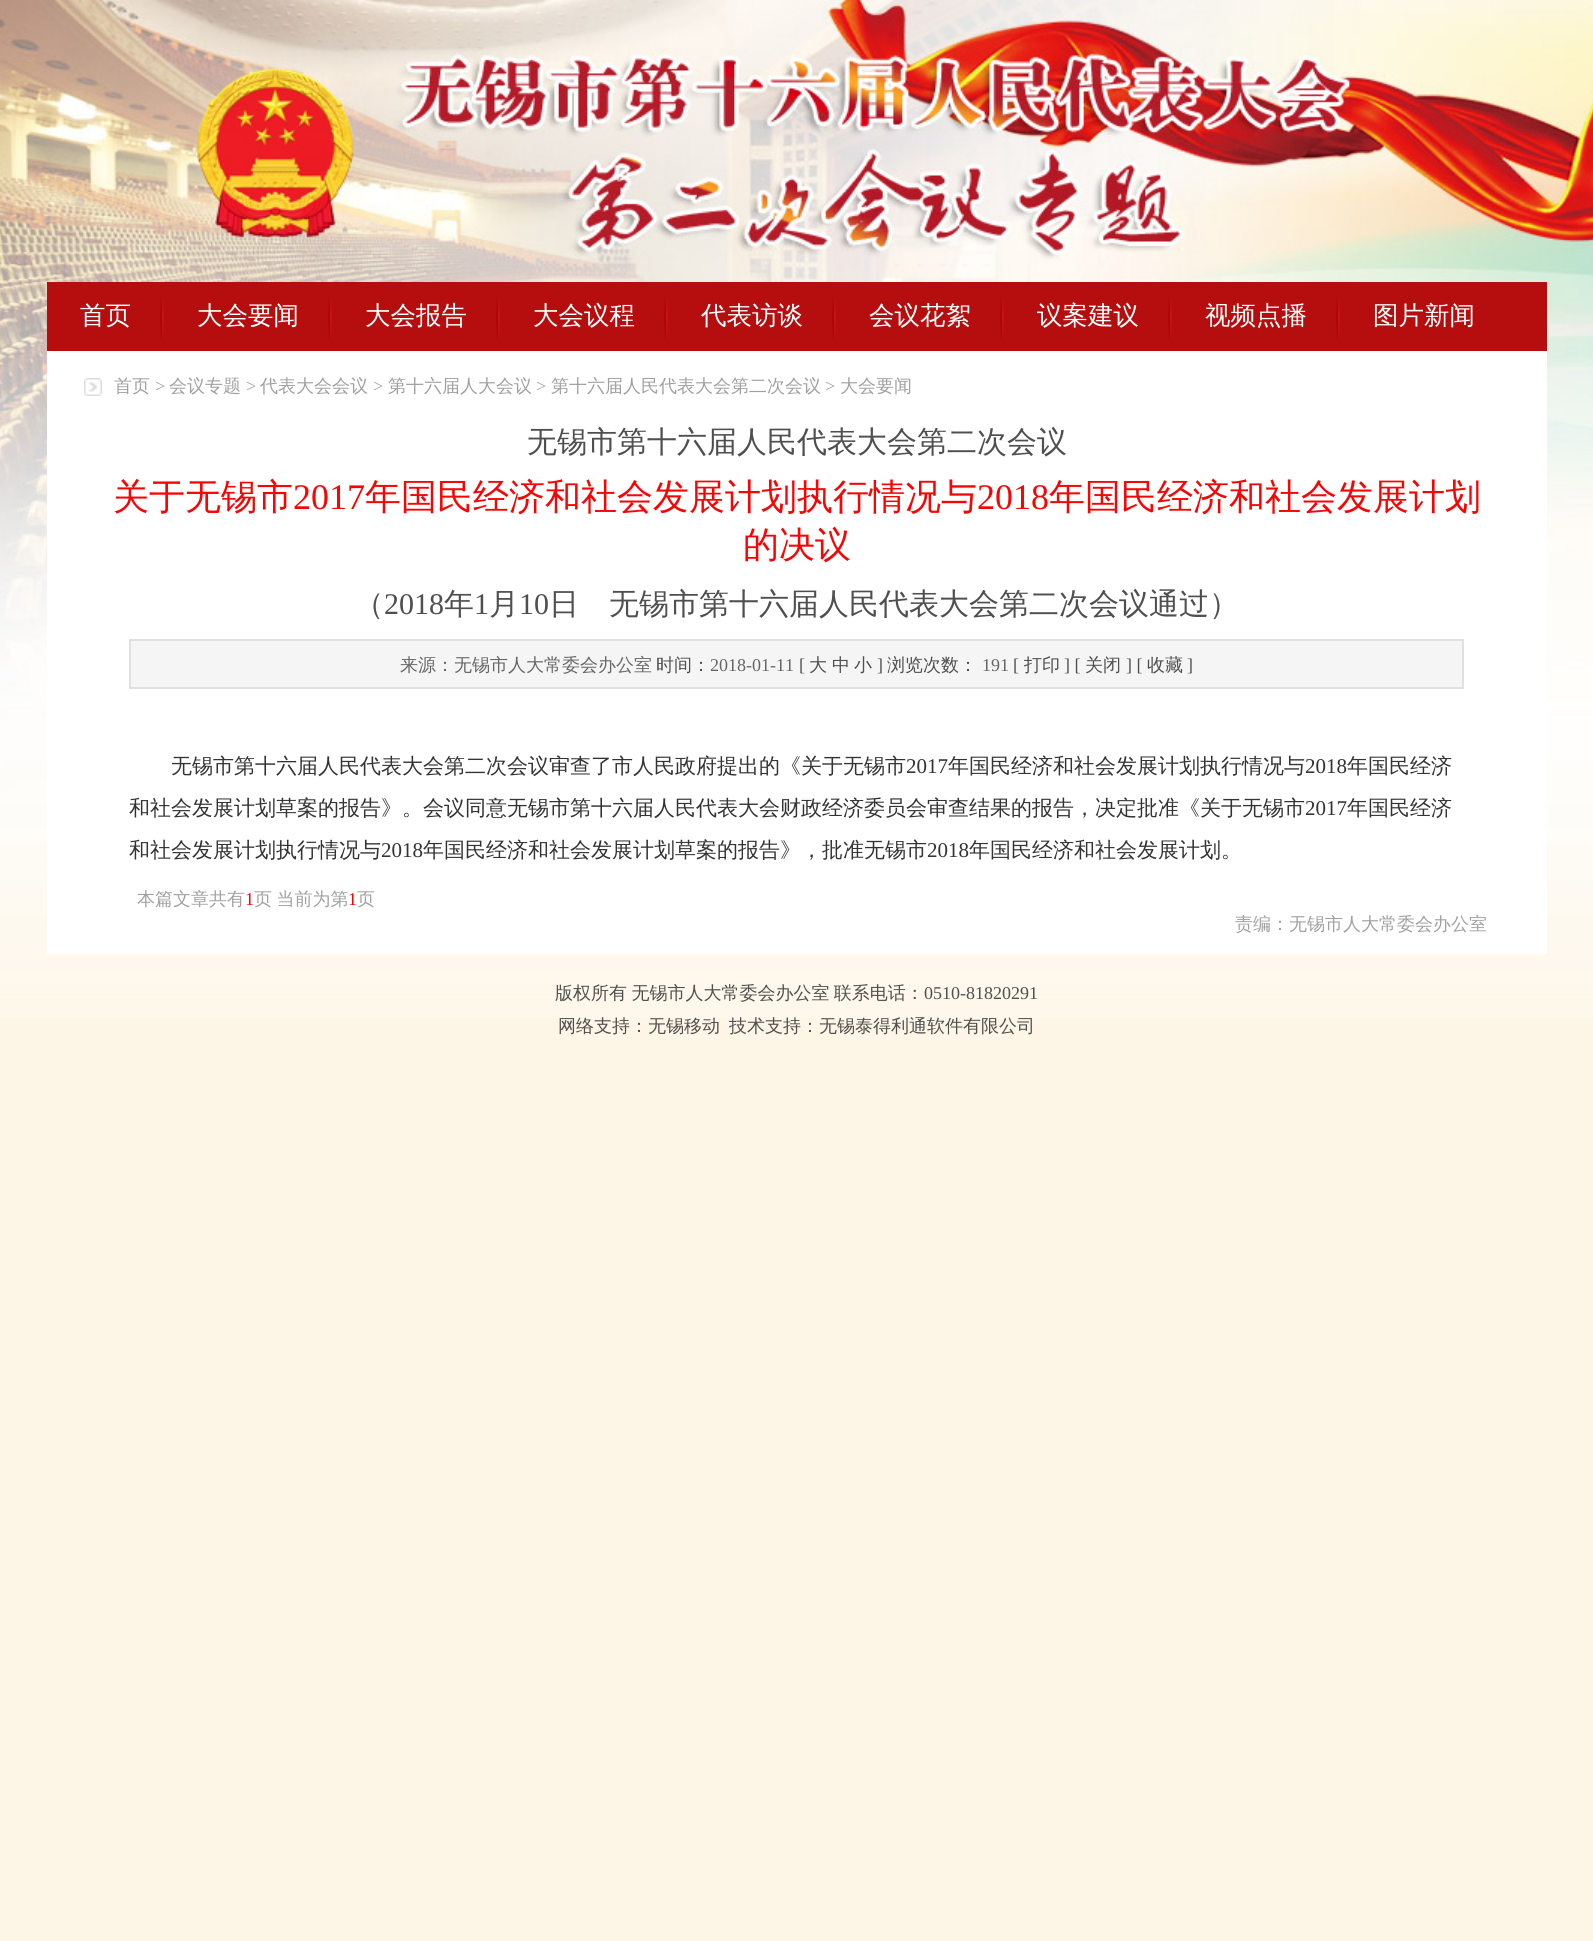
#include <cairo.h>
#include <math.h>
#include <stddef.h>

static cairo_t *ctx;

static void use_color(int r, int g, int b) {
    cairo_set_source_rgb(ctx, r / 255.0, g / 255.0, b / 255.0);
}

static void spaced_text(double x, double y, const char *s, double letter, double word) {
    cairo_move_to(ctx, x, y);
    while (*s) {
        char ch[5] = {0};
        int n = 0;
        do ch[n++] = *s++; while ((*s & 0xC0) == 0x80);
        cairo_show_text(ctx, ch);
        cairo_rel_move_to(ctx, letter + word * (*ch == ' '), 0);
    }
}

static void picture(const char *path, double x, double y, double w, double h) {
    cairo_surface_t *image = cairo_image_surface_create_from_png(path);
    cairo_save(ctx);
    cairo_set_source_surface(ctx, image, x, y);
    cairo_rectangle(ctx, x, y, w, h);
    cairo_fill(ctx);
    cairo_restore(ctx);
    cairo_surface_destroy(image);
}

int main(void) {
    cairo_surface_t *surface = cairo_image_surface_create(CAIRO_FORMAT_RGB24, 1593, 1941);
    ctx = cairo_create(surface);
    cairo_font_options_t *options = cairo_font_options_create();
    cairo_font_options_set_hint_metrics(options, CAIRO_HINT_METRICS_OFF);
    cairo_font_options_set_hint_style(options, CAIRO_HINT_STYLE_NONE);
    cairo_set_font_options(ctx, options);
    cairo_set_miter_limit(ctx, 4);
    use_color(253, 246, 231);
    cairo_paint(ctx);
    picture("img1.png", 0, 0, 1593, 1019);
    use_color(182, 13, 14);
    cairo_rectangle(ctx, 47, 282, 1500, 69);
    cairo_fill(ctx);
    picture("img2.png", 160, 297, 4, 42);
    cairo_select_font_face(ctx, "WenQuanYi Zen Hei Medium", CAIRO_FONT_SLANT_NORMAL, CAIRO_FONT_WEIGHT_NORMAL);
    cairo_set_font_size(ctx, 25.5);
    use_color(255, 255, 255);
    cairo_move_to(ctx, 80, 324);
    cairo_show_text(ctx, "首页");
    picture("img2.png", 328, 297, 4, 42);
    cairo_move_to(ctx, 197, 324);
    cairo_show_text(ctx, "大会要闻");
    picture("img2.png", 496, 297, 4, 42);
    cairo_move_to(ctx, 365, 324);
    cairo_show_text(ctx, "大会报告");
    picture("img2.png", 664, 297, 4, 42);
    cairo_move_to(ctx, 533, 324);
    cairo_show_text(ctx, "大会议程");
    picture("img2.png", 832, 297, 4, 42);
    cairo_move_to(ctx, 701, 324);
    cairo_show_text(ctx, "代表访谈");
    picture("img2.png", 1000, 297, 4, 42);
    cairo_move_to(ctx, 869, 324);
    cairo_show_text(ctx, "会议花絮");
    picture("img2.png", 1168, 297, 4, 42);
    cairo_move_to(ctx, 1037, 324);
    cairo_show_text(ctx, "议案建议");
    picture("img2.png", 1336, 297, 4, 42);
    cairo_move_to(ctx, 1205, 324);
    cairo_show_text(ctx, "视频点播");
    cairo_move_to(ctx, 1373, 324);
    cairo_show_text(ctx, "图片新闻");
    cairo_rectangle(ctx, 47, 351, 1500, 603);
    cairo_fill(ctx);
    picture("img3.png", 84, 378, 18, 18);
    cairo_set_font_size(ctx, 18);
    use_color(160, 160, 160);
    cairo_move_to(ctx, 114, 392);
    cairo_show_text(ctx, "首页");
    cairo_select_font_face(ctx, "Liberation Serif", CAIRO_FONT_SLANT_NORMAL, CAIRO_FONT_WEIGHT_NORMAL);
    cairo_move_to(ctx, 155, 392);
    cairo_show_text(ctx, ">");
    cairo_select_font_face(ctx, "WenQuanYi Zen Hei Medium", CAIRO_FONT_SLANT_NORMAL, CAIRO_FONT_WEIGHT_NORMAL);
    cairo_move_to(ctx, 169, 392);
    cairo_show_text(ctx, "会议专题");
    cairo_select_font_face(ctx, "Liberation Serif", CAIRO_FONT_SLANT_NORMAL, CAIRO_FONT_WEIGHT_NORMAL);
    cairo_move_to(ctx, 246, 392);
    cairo_show_text(ctx, ">");
    cairo_select_font_face(ctx, "WenQuanYi Zen Hei Medium", CAIRO_FONT_SLANT_NORMAL, CAIRO_FONT_WEIGHT_NORMAL);
    cairo_move_to(ctx, 260, 392);
    cairo_show_text(ctx, "代表大会会议");
    cairo_select_font_face(ctx, "Liberation Serif", CAIRO_FONT_SLANT_NORMAL, CAIRO_FONT_WEIGHT_NORMAL);
    cairo_move_to(ctx, 373, 392);
    cairo_show_text(ctx, ">");
    cairo_select_font_face(ctx, "WenQuanYi Zen Hei Medium", CAIRO_FONT_SLANT_NORMAL, CAIRO_FONT_WEIGHT_NORMAL);
    cairo_move_to(ctx, 388, 392);
    cairo_show_text(ctx, "第十六届人大会议");
    cairo_select_font_face(ctx, "Liberation Serif", CAIRO_FONT_SLANT_NORMAL, CAIRO_FONT_WEIGHT_NORMAL);
    cairo_move_to(ctx, 536, 392);
    cairo_show_text(ctx, ">");
    cairo_select_font_face(ctx, "WenQuanYi Zen Hei Medium", CAIRO_FONT_SLANT_NORMAL, CAIRO_FONT_WEIGHT_NORMAL);
    cairo_move_to(ctx, 551, 392);
    cairo_show_text(ctx, "第十六届人民代表大会第二次会议");
    cairo_select_font_face(ctx, "Liberation Serif", CAIRO_FONT_SLANT_NORMAL, CAIRO_FONT_WEIGHT_NORMAL);
    cairo_move_to(ctx, 825, 392);
    cairo_show_text(ctx, ">");
    cairo_select_font_face(ctx, "WenQuanYi Zen Hei Medium", CAIRO_FONT_SLANT_NORMAL, CAIRO_FONT_WEIGHT_NORMAL);
    cairo_move_to(ctx, 840, 392);
    cairo_show_text(ctx, "大会要闻");
    cairo_set_font_size(ctx, 30);
    use_color(79, 79, 79);
    cairo_move_to(ctx, 527, 452);
    cairo_show_text(ctx, "无锡市第十六届人民代表大会第二次会议");
    cairo_set_font_size(ctx, 36);
    use_color(249, 4, 4);
    cairo_move_to(ctx, 113, 509);
    cairo_show_text(ctx, "关于无锡市");
    cairo_select_font_face(ctx, "Liberation Serif", CAIRO_FONT_SLANT_NORMAL, CAIRO_FONT_WEIGHT_NORMAL);
    cairo_move_to(ctx, 293, 509);
    cairo_show_text(ctx, "2017");
    cairo_select_font_face(ctx, "WenQuanYi Zen Hei Medium", CAIRO_FONT_SLANT_NORMAL, CAIRO_FONT_WEIGHT_NORMAL);
    cairo_move_to(ctx, 365, 509);
    cairo_show_text(ctx, "年国民经济和社会发展计划执行情况与");
    cairo_select_font_face(ctx, "Liberation Serif", CAIRO_FONT_SLANT_NORMAL, CAIRO_FONT_WEIGHT_NORMAL);
    cairo_move_to(ctx, 977, 509);
    cairo_show_text(ctx, "2018");
    cairo_select_font_face(ctx, "WenQuanYi Zen Hei Medium", CAIRO_FONT_SLANT_NORMAL, CAIRO_FONT_WEIGHT_NORMAL);
    cairo_move_to(ctx, 1049, 509);
    cairo_show_text(ctx, "年国民经济和社会发展计划");
    cairo_move_to(ctx, 743, 557);
    cairo_show_text(ctx, "的决议");
    cairo_set_font_size(ctx, 30);
    use_color(79, 79, 79);
    cairo_move_to(ctx, 354, 614);
    cairo_show_text(ctx, "（");
    cairo_select_font_face(ctx, "Liberation Serif", CAIRO_FONT_SLANT_NORMAL, CAIRO_FONT_WEIGHT_NORMAL);
    cairo_move_to(ctx, 384, 614);
    cairo_show_text(ctx, "2018");
    cairo_select_font_face(ctx, "WenQuanYi Zen Hei Medium", CAIRO_FONT_SLANT_NORMAL, CAIRO_FONT_WEIGHT_NORMAL);
    cairo_move_to(ctx, 444, 614);
    cairo_show_text(ctx, "年");
    cairo_select_font_face(ctx, "Liberation Serif", CAIRO_FONT_SLANT_NORMAL, CAIRO_FONT_WEIGHT_NORMAL);
    cairo_move_to(ctx, 474, 614);
    cairo_show_text(ctx, "1");
    cairo_select_font_face(ctx, "WenQuanYi Zen Hei Medium", CAIRO_FONT_SLANT_NORMAL, CAIRO_FONT_WEIGHT_NORMAL);
    cairo_move_to(ctx, 489, 614);
    cairo_show_text(ctx, "月");
    cairo_select_font_face(ctx, "Liberation Serif", CAIRO_FONT_SLANT_NORMAL, CAIRO_FONT_WEIGHT_NORMAL);
    cairo_move_to(ctx, 519, 614);
    cairo_show_text(ctx, "10");
    cairo_select_font_face(ctx, "WenQuanYi Zen Hei Medium", CAIRO_FONT_SLANT_NORMAL, CAIRO_FONT_WEIGHT_NORMAL);
    cairo_move_to(ctx, 549, 614);
    cairo_show_text(ctx, "日　无锡市第十六届人民代表大会第二次会议通过）");
    use_color(245, 245, 245);
    cairo_rectangle(ctx, 130, 640, 1333, 48);
    cairo_fill_preserve(ctx);
    use_color(224, 224, 224);
    cairo_stroke(ctx);
    cairo_set_font_size(ctx, 18);
    use_color(102, 102, 102);
    cairo_move_to(ctx, 400, 671);
    cairo_show_text(ctx, "来源：无锡市人大常委会办公室");
    use_color(79, 79, 79);
    cairo_move_to(ctx, 656, 671);
    cairo_show_text(ctx, "时间：");
    cairo_select_font_face(ctx, "Liberation Serif", CAIRO_FONT_SLANT_NORMAL, CAIRO_FONT_WEIGHT_NORMAL);
    use_color(102, 102, 102);
    cairo_move_to(ctx, 710, 671);
    cairo_show_text(ctx, "2018-01-11");
    use_color(79, 79, 79);
    cairo_move_to(ctx, 799, 671);
    cairo_show_text(ctx, "[");
    cairo_select_font_face(ctx, "WenQuanYi Zen Hei Medium", CAIRO_FONT_SLANT_NORMAL, CAIRO_FONT_WEIGHT_NORMAL);
    cairo_move_to(ctx, 809, 671);
    cairo_show_text(ctx, "大");
    cairo_move_to(ctx, 832, 671);
    cairo_show_text(ctx, "中");
    cairo_move_to(ctx, 854, 671);
    cairo_show_text(ctx, "小");
    cairo_select_font_face(ctx, "Liberation Serif", CAIRO_FONT_SLANT_NORMAL, CAIRO_FONT_WEIGHT_NORMAL);
    cairo_move_to(ctx, 877, 671);
    cairo_show_text(ctx, "]");
    cairo_select_font_face(ctx, "WenQuanYi Zen Hei Medium", CAIRO_FONT_SLANT_NORMAL, CAIRO_FONT_WEIGHT_NORMAL);
    cairo_move_to(ctx, 887, 671);
    cairo_show_text(ctx, "浏览次数：");
    cairo_select_font_face(ctx, "Liberation Serif", CAIRO_FONT_SLANT_NORMAL, CAIRO_FONT_WEIGHT_NORMAL);
    use_color(102, 102, 102);
    cairo_move_to(ctx, 982, 671);
    cairo_show_text(ctx, "191");
    use_color(79, 79, 79);
    cairo_move_to(ctx, 1013, 671);
    cairo_show_text(ctx, "[");
    cairo_select_font_face(ctx, "WenQuanYi Zen Hei Medium", CAIRO_FONT_SLANT_NORMAL, CAIRO_FONT_WEIGHT_NORMAL);
    cairo_move_to(ctx, 1024, 671);
    cairo_show_text(ctx, "打印");
    cairo_select_font_face(ctx, "Liberation Serif", CAIRO_FONT_SLANT_NORMAL, CAIRO_FONT_WEIGHT_NORMAL);
    cairo_move_to(ctx, 1064, 671);
    cairo_show_text(ctx, "] [");
    cairo_select_font_face(ctx, "WenQuanYi Zen Hei Medium", CAIRO_FONT_SLANT_NORMAL, CAIRO_FONT_WEIGHT_NORMAL);
    cairo_move_to(ctx, 1085, 671);
    cairo_show_text(ctx, "关闭");
    cairo_select_font_face(ctx, "Liberation Serif", CAIRO_FONT_SLANT_NORMAL, CAIRO_FONT_WEIGHT_NORMAL);
    cairo_move_to(ctx, 1126, 671);
    cairo_show_text(ctx, "] [");
    cairo_select_font_face(ctx, "WenQuanYi Zen Hei Medium", CAIRO_FONT_SLANT_NORMAL, CAIRO_FONT_WEIGHT_NORMAL);
    cairo_move_to(ctx, 1147, 671);
    cairo_show_text(ctx, "收藏");
    cairo_select_font_face(ctx, "Liberation Serif", CAIRO_FONT_SLANT_NORMAL, CAIRO_FONT_WEIGHT_NORMAL);
    cairo_move_to(ctx, 1187, 671);
    cairo_show_text(ctx, "]");
    cairo_select_font_face(ctx, "WenQuanYi Zen Hei Medium", CAIRO_FONT_SLANT_NORMAL, CAIRO_FONT_WEIGHT_NORMAL);
    cairo_set_font_size(ctx, 21);
    use_color(51, 51, 51);
    cairo_move_to(ctx, 171, 773);
    cairo_show_text(ctx, "无锡市第十六届人民代表大会第二次会议审查了市人民政府提出的《关于无锡市");
    cairo_select_font_face(ctx, "Liberation Serif", CAIRO_FONT_SLANT_NORMAL, CAIRO_FONT_WEIGHT_NORMAL);
    cairo_move_to(ctx, 906, 773);
    cairo_show_text(ctx, "2017");
    cairo_select_font_face(ctx, "WenQuanYi Zen Hei Medium", CAIRO_FONT_SLANT_NORMAL, CAIRO_FONT_WEIGHT_NORMAL);
    cairo_move_to(ctx, 948, 773);
    cairo_show_text(ctx, "年国民经济和社会发展计划执行情况与");
    cairo_select_font_face(ctx, "Liberation Serif", CAIRO_FONT_SLANT_NORMAL, CAIRO_FONT_WEIGHT_NORMAL);
    cairo_move_to(ctx, 1305, 773);
    cairo_show_text(ctx, "2018");
    cairo_select_font_face(ctx, "WenQuanYi Zen Hei Medium", CAIRO_FONT_SLANT_NORMAL, CAIRO_FONT_WEIGHT_NORMAL);
    cairo_move_to(ctx, 1347, 773);
    cairo_show_text(ctx, "年国民经济");
    cairo_move_to(ctx, 129, 815);
    cairo_show_text(ctx, "和社会发展计划草案的报告》。会议同意无锡市第十六届人民代表大会财政经济委员会审查结果的报告，决定批准《关于无锡市");
    cairo_select_font_face(ctx, "Liberation Serif", CAIRO_FONT_SLANT_NORMAL, CAIRO_FONT_WEIGHT_NORMAL);
    cairo_move_to(ctx, 1305, 815);
    cairo_show_text(ctx, "2017");
    cairo_select_font_face(ctx, "WenQuanYi Zen Hei Medium", CAIRO_FONT_SLANT_NORMAL, CAIRO_FONT_WEIGHT_NORMAL);
    cairo_move_to(ctx, 1347, 815);
    cairo_show_text(ctx, "年国民经济");
    cairo_move_to(ctx, 129, 857);
    cairo_show_text(ctx, "和社会发展计划执行情况与");
    cairo_select_font_face(ctx, "Liberation Serif", CAIRO_FONT_SLANT_NORMAL, CAIRO_FONT_WEIGHT_NORMAL);
    cairo_move_to(ctx, 381, 857);
    cairo_show_text(ctx, "2018");
    cairo_select_font_face(ctx, "WenQuanYi Zen Hei Medium", CAIRO_FONT_SLANT_NORMAL, CAIRO_FONT_WEIGHT_NORMAL);
    cairo_move_to(ctx, 423, 857);
    cairo_show_text(ctx, "年国民经济和社会发展计划草案的报告》，批准无锡市");
    cairo_select_font_face(ctx, "Liberation Serif", CAIRO_FONT_SLANT_NORMAL, CAIRO_FONT_WEIGHT_NORMAL);
    cairo_move_to(ctx, 927, 857);
    cairo_show_text(ctx, "2018");
    cairo_select_font_face(ctx, "WenQuanYi Zen Hei Medium", CAIRO_FONT_SLANT_NORMAL, CAIRO_FONT_WEIGHT_NORMAL);
    cairo_move_to(ctx, 969, 857);
    cairo_show_text(ctx, "年国民经济和社会发展计划。");
    cairo_set_font_size(ctx, 18);
    use_color(160, 160, 160);
    cairo_move_to(ctx, 137, 905);
    cairo_show_text(ctx, "本篇文章共有");
    cairo_select_font_face(ctx, "Liberation Serif", CAIRO_FONT_SLANT_NORMAL, CAIRO_FONT_WEIGHT_NORMAL);
    use_color(255, 0, 0);
    cairo_move_to(ctx, 245, 905);
    cairo_show_text(ctx, "1");
    cairo_select_font_face(ctx, "WenQuanYi Zen Hei Medium", CAIRO_FONT_SLANT_NORMAL, CAIRO_FONT_WEIGHT_NORMAL);
    use_color(160, 160, 160);
    spaced_text(254, 905, "页 当前为第", 0, -1);
    cairo_select_font_face(ctx, "Liberation Serif", CAIRO_FONT_SLANT_NORMAL, CAIRO_FONT_WEIGHT_NORMAL);
    use_color(255, 0, 0);
    cairo_move_to(ctx, 348, 905);
    cairo_show_text(ctx, "1");
    cairo_select_font_face(ctx, "WenQuanYi Zen Hei Medium", CAIRO_FONT_SLANT_NORMAL, CAIRO_FONT_WEIGHT_NORMAL);
    use_color(160, 160, 160);
    cairo_move_to(ctx, 357, 905);
    cairo_show_text(ctx, "页");
    cairo_move_to(ctx, 1235, 930);
    cairo_show_text(ctx, "责编：无锡市人大常委会办公室");
    use_color(79, 79, 79);
    spaced_text(555, 999, "版权所有 无锡市人大常委会办公室 联系电话：", 0, -1);
    cairo_select_font_face(ctx, "Liberation Serif", CAIRO_FONT_SLANT_NORMAL, CAIRO_FONT_WEIGHT_NORMAL);
    cairo_move_to(ctx, 924, 999);
    cairo_show_text(ctx, "0510-81820291");
    cairo_select_font_face(ctx, "WenQuanYi Zen Hei Medium", CAIRO_FONT_SLANT_NORMAL, CAIRO_FONT_WEIGHT_NORMAL);
    cairo_move_to(ctx, 558, 1032);
    cairo_show_text(ctx, "网络支持：无锡移动");
    cairo_move_to(ctx, 729, 1032);
    cairo_show_text(ctx, "技术支持：无锡泰得利通软件有限公司");
    cairo_surface_write_to_png(surface, "result.png");
    cairo_font_options_destroy(options);
    cairo_destroy(ctx);
    cairo_surface_destroy(surface);
    return 0;
}
